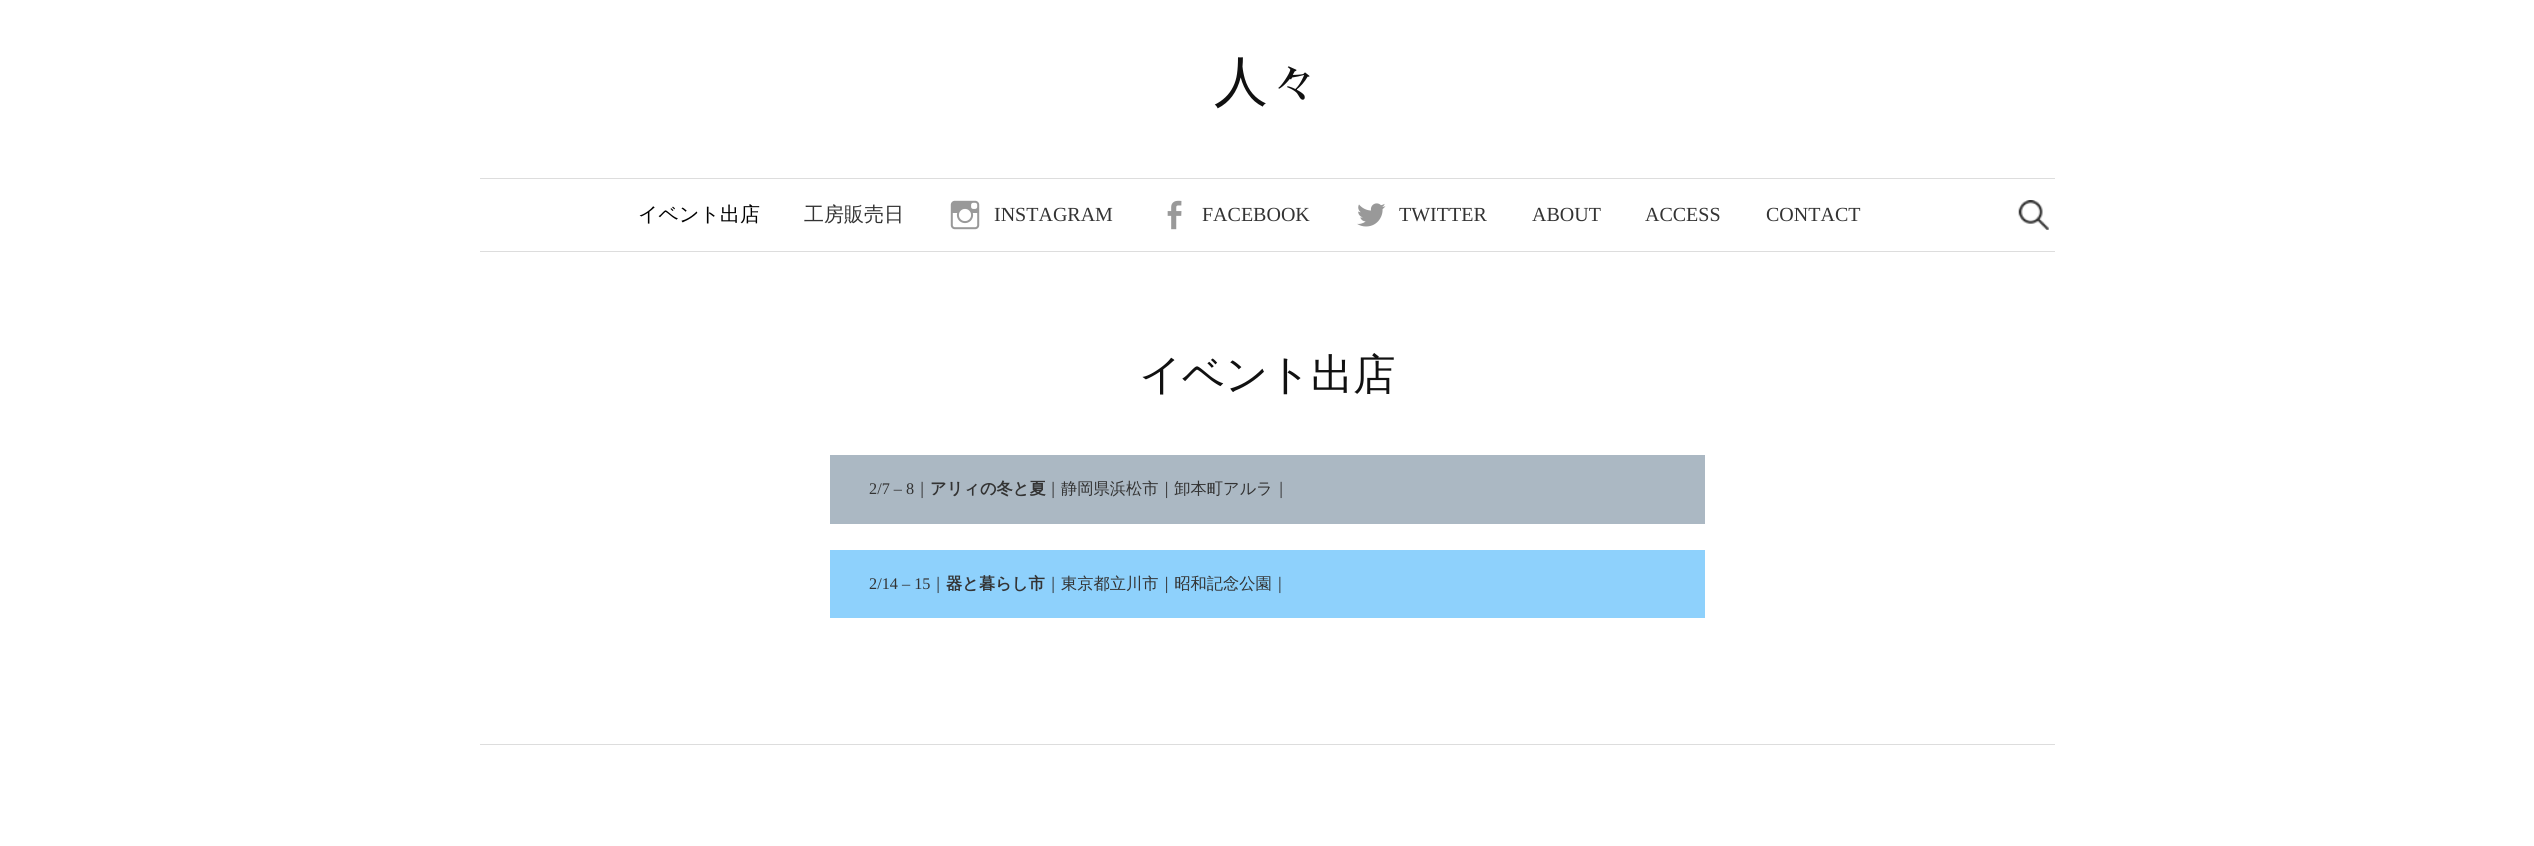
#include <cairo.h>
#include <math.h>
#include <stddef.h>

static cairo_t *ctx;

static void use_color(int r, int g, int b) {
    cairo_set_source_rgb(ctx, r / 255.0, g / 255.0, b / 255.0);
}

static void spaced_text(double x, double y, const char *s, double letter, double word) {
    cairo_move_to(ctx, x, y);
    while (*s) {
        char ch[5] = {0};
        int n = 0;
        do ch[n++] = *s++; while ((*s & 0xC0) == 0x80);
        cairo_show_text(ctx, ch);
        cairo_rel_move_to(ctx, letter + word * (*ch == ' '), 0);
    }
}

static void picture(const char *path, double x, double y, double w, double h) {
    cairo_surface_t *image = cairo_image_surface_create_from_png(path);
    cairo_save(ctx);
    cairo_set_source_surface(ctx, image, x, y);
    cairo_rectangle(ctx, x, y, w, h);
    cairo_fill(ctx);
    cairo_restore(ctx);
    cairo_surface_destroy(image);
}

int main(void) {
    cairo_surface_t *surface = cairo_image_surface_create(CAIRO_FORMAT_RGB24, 2534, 846);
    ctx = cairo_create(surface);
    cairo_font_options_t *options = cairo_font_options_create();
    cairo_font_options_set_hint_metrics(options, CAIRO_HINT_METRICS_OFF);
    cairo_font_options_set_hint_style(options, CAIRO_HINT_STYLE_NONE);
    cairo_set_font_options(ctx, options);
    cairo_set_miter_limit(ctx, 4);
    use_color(255, 255, 255);
    cairo_paint(ctx);
    cairo_select_font_face(ctx, "WenQuanYi Zen Hei Medium", CAIRO_FONT_SLANT_NORMAL, CAIRO_FONT_WEIGHT_NORMAL);
    cairo_set_font_size(ctx, 54);
    use_color(17, 17, 17);
    spaced_text(1214, 100, "人々", -1, 0);
    use_color(221, 221, 221);
    cairo_rectangle(ctx, 480, 178, 1575, 1);
    cairo_fill(ctx);
    cairo_rectangle(ctx, 480, 251, 1575, 1);
    cairo_fill(ctx);
    cairo_set_font_size(ctx, 20);
    use_color(0, 0, 0);
    cairo_move_to(ctx, 638, 221);
    cairo_show_text(ctx, "イベント出店");
    use_color(51, 51, 51);
    cairo_move_to(ctx, 804, 221);
    cairo_show_text(ctx, "工房販売日");
    picture("img1.png", 950, 200, 30, 30);
    cairo_select_font_face(ctx, "Liberation Serif", CAIRO_FONT_SLANT_NORMAL, CAIRO_FONT_WEIGHT_NORMAL);
    cairo_move_to(ctx, 994, 221);
    cairo_show_text(ctx, "INSTAGRAM");
    picture("img2.png", 1167, 200, 15, 30);
    cairo_move_to(ctx, 1202, 221);
    cairo_show_text(ctx, "FACEBOOK");
    picture("img3.png", 1357, 203, 29, 24);
    cairo_move_to(ctx, 1399, 221);
    cairo_show_text(ctx, "TWITTER");
    cairo_move_to(ctx, 1532, 221);
    cairo_show_text(ctx, "ABOUT");
    cairo_move_to(ctx, 1645, 221);
    cairo_show_text(ctx, "ACCESS");
    cairo_move_to(ctx, 1766, 221);
    cairo_show_text(ctx, "CONTACT");
    picture("img4.png", 2018, 200, 31, 30);
    cairo_select_font_face(ctx, "WenQuanYi Zen Hei Medium", CAIRO_FONT_SLANT_NORMAL, CAIRO_FONT_WEIGHT_NORMAL);
    cairo_set_font_size(ctx, 42.5);
    use_color(17, 17, 17);
    spaced_text(1139, 389, "イベント出店", -0.5, 0);
    use_color(171, 184, 195);
    cairo_rectangle(ctx, 830, 455, 875, 69);
    cairo_fill(ctx);
    cairo_select_font_face(ctx, "Liberation Serif", CAIRO_FONT_SLANT_NORMAL, CAIRO_FONT_WEIGHT_NORMAL);
    cairo_set_font_size(ctx, 16.25);
    use_color(51, 51, 51);
    cairo_move_to(ctx, 869, 494);
    cairo_show_text(ctx, "2/7 – 8");
    cairo_select_font_face(ctx, "WenQuanYi Zen Hei Medium", CAIRO_FONT_SLANT_NORMAL, CAIRO_FONT_WEIGHT_NORMAL);
    cairo_move_to(ctx, 914, 494);
    cairo_show_text(ctx, "｜");
    cairo_select_font_face(ctx, "WenQuanYi Zen Hei", CAIRO_FONT_SLANT_NORMAL, CAIRO_FONT_WEIGHT_BOLD);
    cairo_move_to(ctx, 930, 494);
    cairo_show_text(ctx, "アリィの冬と夏");
    cairo_select_font_face(ctx, "WenQuanYi Zen Hei Medium", CAIRO_FONT_SLANT_NORMAL, CAIRO_FONT_WEIGHT_NORMAL);
    cairo_move_to(ctx, 1045, 494);
    cairo_show_text(ctx, "｜静岡県浜松市｜卸本町アルラ｜");
    use_color(142, 209, 252);
    cairo_rectangle(ctx, 830, 550, 875, 68);
    cairo_fill(ctx);
    cairo_select_font_face(ctx, "Liberation Serif", CAIRO_FONT_SLANT_NORMAL, CAIRO_FONT_WEIGHT_NORMAL);
    use_color(51, 51, 51);
    cairo_move_to(ctx, 869, 589);
    cairo_show_text(ctx, "2/14 – 15");
    cairo_select_font_face(ctx, "WenQuanYi Zen Hei Medium", CAIRO_FONT_SLANT_NORMAL, CAIRO_FONT_WEIGHT_NORMAL);
    cairo_move_to(ctx, 930, 589);
    cairo_show_text(ctx, "｜");
    cairo_select_font_face(ctx, "WenQuanYi Zen Hei", CAIRO_FONT_SLANT_NORMAL, CAIRO_FONT_WEIGHT_BOLD);
    cairo_move_to(ctx, 946, 589);
    cairo_show_text(ctx, "器と暮らし市");
    cairo_select_font_face(ctx, "WenQuanYi Zen Hei Medium", CAIRO_FONT_SLANT_NORMAL, CAIRO_FONT_WEIGHT_NORMAL);
    cairo_move_to(ctx, 1045, 589);
    cairo_show_text(ctx, "｜東京都立川市｜昭和記念公園｜");
    use_color(221, 221, 221);
    cairo_rectangle(ctx, 480, 744, 1575, 1);
    cairo_fill(ctx);
    cairo_surface_write_to_png(surface, "result.png");
    cairo_font_options_destroy(options);
    cairo_destroy(ctx);
    cairo_surface_destroy(surface);
    return 0;
}
